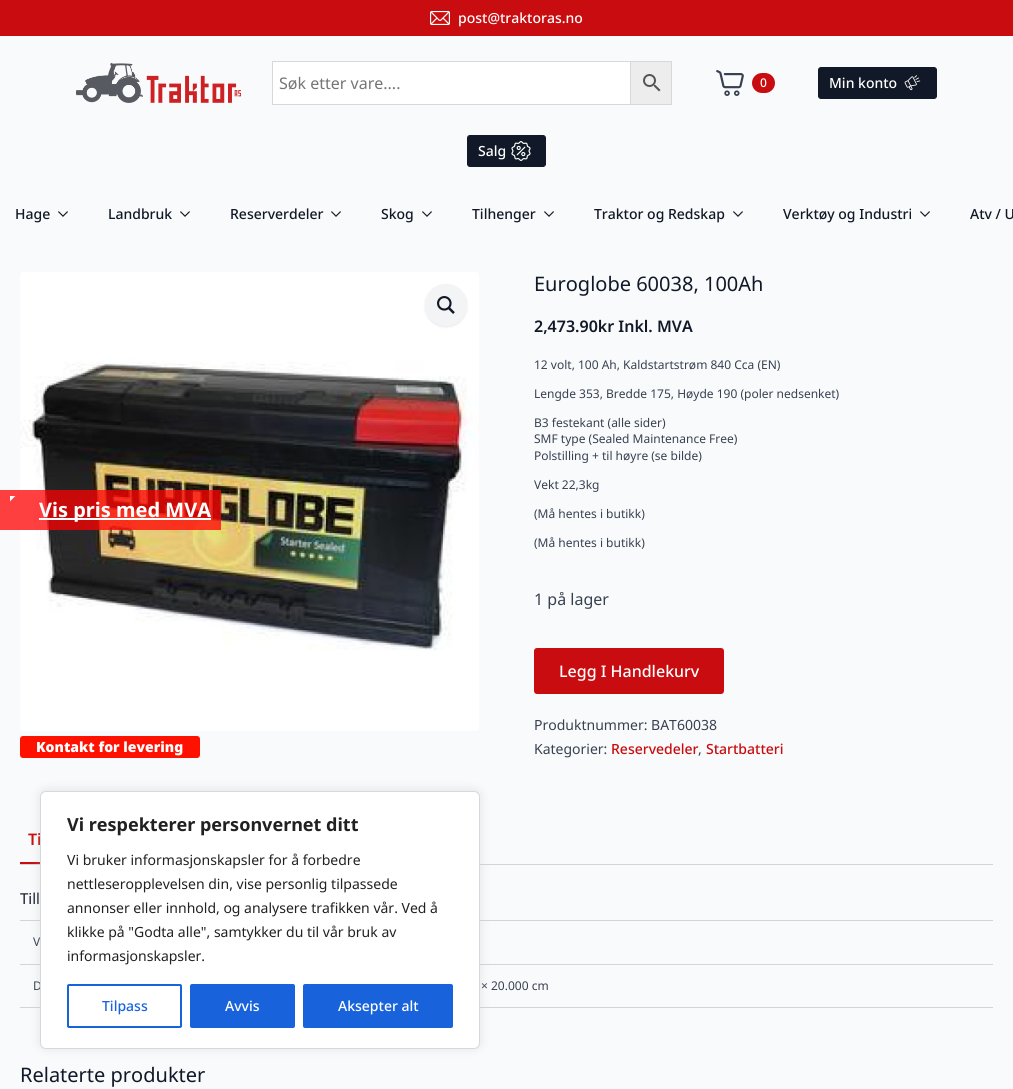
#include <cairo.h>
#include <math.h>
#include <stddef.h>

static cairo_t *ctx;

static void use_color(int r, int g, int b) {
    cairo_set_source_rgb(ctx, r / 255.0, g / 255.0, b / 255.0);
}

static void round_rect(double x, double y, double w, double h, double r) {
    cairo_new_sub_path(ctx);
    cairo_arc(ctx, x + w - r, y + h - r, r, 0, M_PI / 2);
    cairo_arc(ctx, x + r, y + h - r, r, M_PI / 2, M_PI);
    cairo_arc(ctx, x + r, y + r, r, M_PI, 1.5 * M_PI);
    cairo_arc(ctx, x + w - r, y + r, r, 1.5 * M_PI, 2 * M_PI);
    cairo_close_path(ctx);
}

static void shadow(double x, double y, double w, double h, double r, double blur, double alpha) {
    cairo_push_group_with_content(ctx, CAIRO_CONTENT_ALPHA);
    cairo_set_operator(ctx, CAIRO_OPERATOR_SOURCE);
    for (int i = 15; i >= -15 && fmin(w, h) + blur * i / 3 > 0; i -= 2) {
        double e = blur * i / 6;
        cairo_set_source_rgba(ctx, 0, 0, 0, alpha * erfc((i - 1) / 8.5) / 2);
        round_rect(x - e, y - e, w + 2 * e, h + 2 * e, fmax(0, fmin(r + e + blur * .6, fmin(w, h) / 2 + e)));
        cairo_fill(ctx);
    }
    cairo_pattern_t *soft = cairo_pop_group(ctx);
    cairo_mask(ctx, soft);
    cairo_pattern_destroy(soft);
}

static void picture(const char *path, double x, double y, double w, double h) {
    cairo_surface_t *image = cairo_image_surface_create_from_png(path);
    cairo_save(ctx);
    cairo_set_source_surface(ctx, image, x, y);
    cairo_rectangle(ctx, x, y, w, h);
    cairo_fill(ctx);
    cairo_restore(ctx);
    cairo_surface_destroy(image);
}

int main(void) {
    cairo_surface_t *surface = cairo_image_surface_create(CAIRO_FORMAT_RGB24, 1013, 1089);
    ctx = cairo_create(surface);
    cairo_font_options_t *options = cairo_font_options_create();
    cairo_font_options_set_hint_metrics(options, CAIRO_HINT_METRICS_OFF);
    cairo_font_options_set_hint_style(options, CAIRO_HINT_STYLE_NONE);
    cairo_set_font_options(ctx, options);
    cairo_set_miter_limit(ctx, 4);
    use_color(249, 250, 251);
    cairo_paint(ctx);
    use_color(201, 12, 15);
    cairo_rectangle(ctx, 0, 0, 1013, 36);
    cairo_fill(ctx);
    picture("img1.png", 430, 11, 20, 14);
    cairo_select_font_face(ctx, "Noto Sans Medium", CAIRO_FONT_SLANT_NORMAL, CAIRO_FONT_WEIGHT_NORMAL);
    cairo_set_font_size(ctx, 14);
    use_color(255, 255, 255);
    cairo_move_to(ctx, 458, 23);
    cairo_show_text(ctx, "post@traktoras.no");
    picture("img2.png", 76, 63, 165, 40);
    use_color(237, 237, 237);
    cairo_rectangle(ctx, 630.5, 61.5, 41, 43);
    cairo_fill_preserve(ctx);
    use_color(216, 216, 216);
    cairo_set_line_width(ctx, 1);
    cairo_stroke(ctx);
    use_color(255, 255, 255);
    cairo_rectangle(ctx, 272.5, 61.5, 358, 43);
    cairo_fill_preserve(ctx);
    use_color(216, 216, 216);
    cairo_stroke(ctx);
    cairo_select_font_face(ctx, "Noto Sans", CAIRO_FONT_SLANT_NORMAL, CAIRO_FONT_WEIGHT_NORMAL);
    cairo_set_font_size(ctx, 16);
    use_color(117, 117, 117);
    cairo_move_to(ctx, 279, 89);
    cairo_show_text(ctx, "Søk etter vare....");
    picture("img3.png", 643, 74, 18, 18);
    picture("img4.png", 716, 70, 28, 26);
    use_color(201, 12, 15);
    round_rect(752, 73, 23, 20, 10);
    cairo_fill(ctx);
    cairo_select_font_face(ctx, "Noto Sans Medium", CAIRO_FONT_SLANT_NORMAL, CAIRO_FONT_WEIGHT_NORMAL);
    cairo_set_font_size(ctx, 12);
    use_color(255, 255, 255);
    cairo_move_to(ctx, 760, 87);
    cairo_show_text(ctx, "0");
    use_color(17, 24, 39);
    round_rect(818.5, 67.5, 118, 31, 2.5);
    cairo_fill_preserve(ctx);
    cairo_stroke(ctx);
    cairo_set_font_size(ctx, 14);
    use_color(255, 255, 255);
    cairo_move_to(ctx, 829, 88);
    cairo_show_text(ctx, "Min konto");
    picture("img5.png", 904, 75, 17, 16);
    use_color(17, 24, 39);
    round_rect(467.5, 135.5, 78, 31, 2.5);
    cairo_fill_preserve(ctx);
    cairo_stroke(ctx);
    use_color(255, 255, 255);
    cairo_move_to(ctx, 478, 156);
    cairo_show_text(ctx, "Salg");
    picture("img6.png", 511, 141, 20, 20);
    use_color(17, 24, 39);
    cairo_move_to(ctx, 15, 219);
    cairo_show_text(ctx, "Hage");
    picture("img7.png", 58, 211, 10, 6);
    cairo_move_to(ctx, 108, 219);
    cairo_show_text(ctx, "Landbruk");
    picture("img7.png", 180, 211, 10, 6);
    cairo_move_to(ctx, 230, 219);
    cairo_show_text(ctx, "Reserverdeler");
    picture("img7.png", 331, 211, 10, 6);
    cairo_move_to(ctx, 381, 219);
    cairo_show_text(ctx, "Skog");
    picture("img7.png", 422, 211, 10, 6);
    cairo_move_to(ctx, 472, 219);
    cairo_show_text(ctx, "Tilhenger");
    picture("img7.png", 544, 211, 10, 6);
    cairo_move_to(ctx, 594, 219);
    cairo_show_text(ctx, "Traktor og Redskap");
    picture("img7.png", 733, 211, 10, 6);
    cairo_move_to(ctx, 783, 219);
    cairo_show_text(ctx, "Verktøy og Industri");
    picture("img7.png", 920, 211, 10, 6);
    cairo_move_to(ctx, 970, 219);
    cairo_show_text(ctx, "Atv / U");
    picture("img8.png", 20, 272, 459, 459);
    use_color(0, 0, 0);
    shadow(425, 285, 42, 42, 21, 1, 0.05);
    shadow(425, 285, 42, 42, 21, 1.5, 0.05);
    use_color(243, 244, 246);
    cairo_arc(ctx, 446, 305, 21, 0, 2 * M_PI);
    cairo_fill(ctx);
    picture("img9.png", 437, 296, 18, 18);
    use_color(255, 17, 0);
    round_rect(20, 736, 180, 22, 3);
    cairo_fill(ctx);
    cairo_select_font_face(ctx, "Noto Sans Black", CAIRO_FONT_SLANT_NORMAL, CAIRO_FONT_WEIGHT_NORMAL);
    use_color(255, 255, 255);
    cairo_move_to(ctx, 36, 752);
    cairo_show_text(ctx, "Kontakt for levering");
    cairo_select_font_face(ctx, "Noto Sans", CAIRO_FONT_SLANT_NORMAL, CAIRO_FONT_WEIGHT_NORMAL);
    cairo_set_font_size(ctx, 20);
    use_color(17, 24, 39);
    cairo_move_to(ctx, 534, 291);
    cairo_show_text(ctx, "Euroglobe 60038, 100Ah");
    cairo_select_font_face(ctx, "Noto Sans SemiBold", CAIRO_FONT_SLANT_NORMAL, CAIRO_FONT_WEIGHT_NORMAL);
    cairo_set_font_size(ctx, 16);
    cairo_move_to(ctx, 534, 332);
    cairo_show_text(ctx, "2,473.90kr Inkl. MVA");
    cairo_select_font_face(ctx, "Noto Sans", CAIRO_FONT_SLANT_NORMAL, CAIRO_FONT_WEIGHT_NORMAL);
    cairo_set_font_size(ctx, 12);
    use_color(55, 65, 81);
    cairo_move_to(ctx, 534, 369);
    cairo_show_text(ctx, "12 volt, 100 Ah, Kaldstartstrøm 840 Cca (EN)");
    cairo_move_to(ctx, 534, 398);
    cairo_show_text(ctx, "Lengde 353, Bredde 175, Høyde 190 (poler nedsenket)");
    cairo_move_to(ctx, 534, 427);
    cairo_show_text(ctx, "B3 festekant (alle sider)");
    cairo_move_to(ctx, 534, 443);
    cairo_show_text(ctx, "SMF type (Sealed Maintenance Free)");
    cairo_move_to(ctx, 534, 460);
    cairo_show_text(ctx, "Polstilling + til høyre (se bilde)");
    cairo_move_to(ctx, 534, 489);
    cairo_show_text(ctx, "Vekt 22,3kg");
    cairo_move_to(ctx, 534, 518);
    cairo_show_text(ctx, "(Må hentes i butikk)");
    cairo_move_to(ctx, 534, 547);
    cairo_show_text(ctx, "(Må hentes i butikk)");
    cairo_set_font_size(ctx, 16);
    cairo_move_to(ctx, 534, 605);
    cairo_show_text(ctx, "1 på lager");
    use_color(201, 12, 15);
    round_rect(534, 648, 190, 46, 3);
    cairo_fill(ctx);
    cairo_select_font_face(ctx, "Noto Sans Medium", CAIRO_FONT_SLANT_NORMAL, CAIRO_FONT_WEIGHT_NORMAL);
    use_color(255, 255, 255);
    cairo_move_to(ctx, 559, 677);
    cairo_show_text(ctx, "Legg I Handlekurv");
    cairo_select_font_face(ctx, "Noto Sans", CAIRO_FONT_SLANT_NORMAL, CAIRO_FONT_WEIGHT_NORMAL);
    cairo_set_font_size(ctx, 14);
    use_color(55, 65, 81);
    cairo_move_to(ctx, 534, 730);
    cairo_show_text(ctx, "Produktnummer: BAT60038");
    cairo_move_to(ctx, 534, 754);
    cairo_show_text(ctx, "Kategorier:");
    cairo_select_font_face(ctx, "Noto Sans Medium", CAIRO_FONT_SLANT_NORMAL, CAIRO_FONT_WEIGHT_NORMAL);
    use_color(201, 12, 15);
    cairo_move_to(ctx, 611, 754);
    cairo_show_text(ctx, "Reservedeler");
    cairo_select_font_face(ctx, "Noto Sans", CAIRO_FONT_SLANT_NORMAL, CAIRO_FONT_WEIGHT_NORMAL);
    use_color(55, 65, 81);
    cairo_move_to(ctx, 698, 754);
    cairo_show_text(ctx, ",");
    cairo_select_font_face(ctx, "Noto Sans Medium", CAIRO_FONT_SLANT_NORMAL, CAIRO_FONT_WEIGHT_NORMAL);
    use_color(201, 12, 15);
    cairo_move_to(ctx, 706, 754);
    cairo_show_text(ctx, "Startbatteri");
    use_color(209, 213, 219);
    cairo_rectangle(ctx, 20, 864, 973, 1);
    cairo_fill(ctx);
    cairo_select_font_face(ctx, "Noto Sans SemiBold", CAIRO_FONT_SLANT_NORMAL, CAIRO_FONT_WEIGHT_NORMAL);
    cairo_set_font_size(ctx, 16);
    use_color(201, 12, 15);
    cairo_move_to(ctx, 28, 845);
    cairo_show_text(ctx, "Ti");
    cairo_rectangle(ctx, 20, 862, 20, 2);
    cairo_fill(ctx);
    cairo_select_font_face(ctx, "Noto Sans", CAIRO_FONT_SLANT_NORMAL, CAIRO_FONT_WEIGHT_NORMAL);
    cairo_set_font_size(ctx, 15);
    use_color(17, 24, 39);
    cairo_move_to(ctx, 20, 904);
    cairo_show_text(ctx, "Till");
    use_color(209, 213, 219);
    cairo_rectangle(ctx, 20, 920, 973, 1);
    cairo_fill(ctx);
    cairo_rectangle(ctx, 20, 964, 973, 1);
    cairo_fill(ctx);
    cairo_set_font_size(ctx, 12);
    use_color(55, 65, 81);
    cairo_move_to(ctx, 33, 946);
    cairo_show_text(ctx, "V");
    use_color(209, 213, 219);
    cairo_rectangle(ctx, 20, 1007, 973, 1);
    cairo_fill(ctx);
    use_color(55, 65, 81);
    cairo_move_to(ctx, 33, 990);
    cairo_show_text(ctx, "D");
    cairo_move_to(ctx, 481, 990);
    cairo_show_text(ctx, "× 20.000 cm");
    cairo_set_font_size(ctx, 20);
    use_color(17, 24, 39);
    cairo_move_to(ctx, 20, 1082);
    cairo_show_text(ctx, "Relaterte produkter");
    cairo_set_source_rgba(ctx, 1, 0, 0, 0.75);
    cairo_rectangle(ctx, 0, 490, 221, 40);
    cairo_fill(ctx);
    picture("img10.png", 10, 496, 6, 6);
    use_color(255, 255, 255);
    cairo_rectangle(ctx, 39, 518, 172, 2);
    cairo_fill(ctx);
    cairo_select_font_face(ctx, "Noto Sans", CAIRO_FONT_SLANT_NORMAL, CAIRO_FONT_WEIGHT_BOLD);
    cairo_move_to(ctx, 39, 517);
    cairo_show_text(ctx, "Vis pris med MVA");
    use_color(172, 171, 171);
    shadow(40, 790, 440, 258, 6, 5, 0.3);
    use_color(255, 255, 255);
    round_rect(40.5, 791.5, 439, 257, 5.5);
    cairo_fill_preserve(ctx);
    use_color(212, 216, 223);
    cairo_stroke(ctx);
    cairo_set_font_size(ctx, 18);
    use_color(33, 33, 33);
    cairo_move_to(ctx, 67, 831);
    cairo_show_text(ctx, "Vi respekterer personvernet ditt");
    cairo_select_font_face(ctx, "Noto Sans", CAIRO_FONT_SLANT_NORMAL, CAIRO_FONT_WEIGHT_NORMAL);
    cairo_set_font_size(ctx, 14);
    cairo_move_to(ctx, 67, 865);
    cairo_show_text(ctx, "Vi bruker informasjonskapsler for å forbedre");
    cairo_move_to(ctx, 67, 889);
    cairo_show_text(ctx, "nettleseropplevelsen din, vise personlig tilpassede");
    cairo_move_to(ctx, 67, 913);
    cairo_show_text(ctx, "annonser eller innhold, og analysere trafikken vår. Ved å");
    cairo_move_to(ctx, 67, 937);
    cairo_show_text(ctx, "klikke på \"Godta alle\", samtykker du til vår bruk av");
    cairo_move_to(ctx, 67, 961);
    cairo_show_text(ctx, "informasjonskapsler.");
    round_rect(68, 985, 113, 42, 1);
    use_color(24, 99, 220);
    cairo_set_line_width(ctx, 2);
    cairo_stroke(ctx);
    cairo_select_font_face(ctx, "Noto Sans Medium", CAIRO_FONT_SLANT_NORMAL, CAIRO_FONT_WEIGHT_NORMAL);
    cairo_move_to(ctx, 102, 1011);
    cairo_show_text(ctx, "Tilpass");
    round_rect(191, 985, 103, 42, 1);
    cairo_fill_preserve(ctx);
    cairo_stroke(ctx);
    use_color(255, 255, 255);
    cairo_move_to(ctx, 225, 1011);
    cairo_show_text(ctx, "Avvis");
    use_color(24, 99, 220);
    round_rect(304, 985, 148, 42, 1);
    cairo_fill_preserve(ctx);
    cairo_stroke(ctx);
    use_color(255, 255, 255);
    cairo_move_to(ctx, 338, 1011);
    cairo_show_text(ctx, "Aksepter alt");
    cairo_surface_write_to_png(surface, "result.png");
    cairo_font_options_destroy(options);
    cairo_destroy(ctx);
    cairo_surface_destroy(surface);
    return 0;
}
